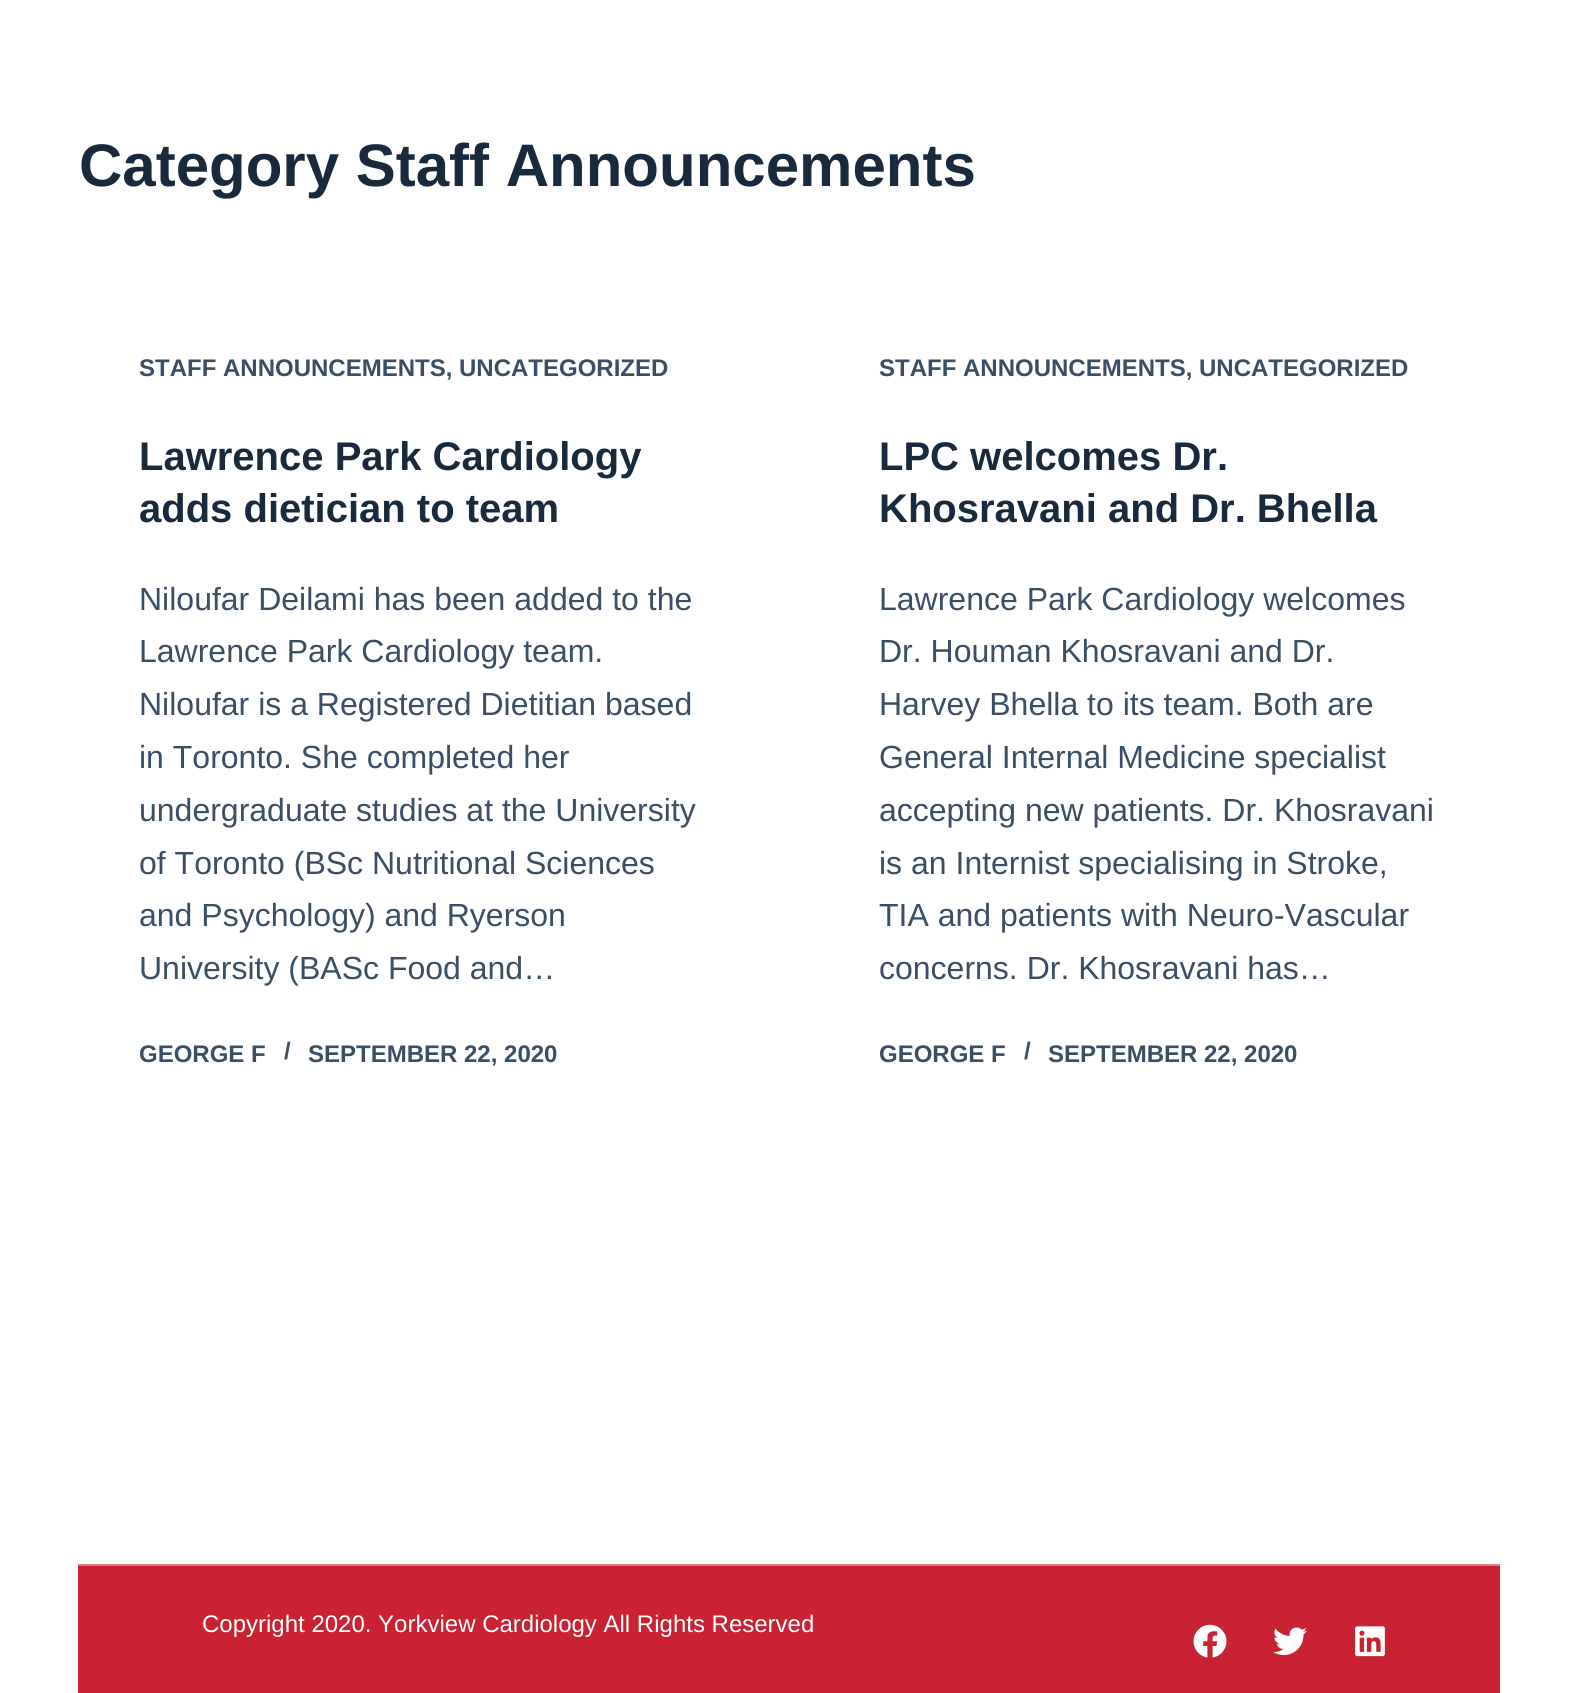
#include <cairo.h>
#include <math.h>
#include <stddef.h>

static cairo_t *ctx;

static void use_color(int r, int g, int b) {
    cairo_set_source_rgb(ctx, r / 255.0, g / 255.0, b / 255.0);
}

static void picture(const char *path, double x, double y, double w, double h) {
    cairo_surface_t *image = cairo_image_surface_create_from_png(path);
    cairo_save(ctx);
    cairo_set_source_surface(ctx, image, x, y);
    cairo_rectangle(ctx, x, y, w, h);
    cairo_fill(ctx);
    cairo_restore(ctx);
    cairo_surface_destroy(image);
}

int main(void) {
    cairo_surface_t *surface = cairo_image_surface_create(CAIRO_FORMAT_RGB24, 1577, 1693);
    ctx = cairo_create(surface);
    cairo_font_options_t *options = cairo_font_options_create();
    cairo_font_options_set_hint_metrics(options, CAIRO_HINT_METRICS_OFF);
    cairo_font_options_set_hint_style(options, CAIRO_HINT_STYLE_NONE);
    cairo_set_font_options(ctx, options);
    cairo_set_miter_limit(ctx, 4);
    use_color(255, 255, 255);
    cairo_paint(ctx);
    cairo_select_font_face(ctx, "Liberation Sans", CAIRO_FONT_SLANT_NORMAL, CAIRO_FONT_WEIGHT_BOLD);
    cairo_set_font_size(ctx, 60);
    use_color(25, 42, 61);
    cairo_move_to(ctx, 79, 186);
    cairo_show_text(ctx, "Category Staff Announcements");
    cairo_set_font_size(ctx, 24);
    use_color(58, 79, 102);
    cairo_move_to(ctx, 139, 376);
    cairo_show_text(ctx, "STAFF ANNOUNCEMENTS, UNCATEGORIZED");
    cairo_set_font_size(ctx, 40);
    use_color(25, 42, 61);
    cairo_move_to(ctx, 139, 470);
    cairo_show_text(ctx, "Lawrence Park Cardiology");
    cairo_move_to(ctx, 139, 522);
    cairo_show_text(ctx, "adds dietician to team");
    cairo_select_font_face(ctx, "Liberation Sans", CAIRO_FONT_SLANT_NORMAL, CAIRO_FONT_WEIGHT_NORMAL);
    cairo_set_font_size(ctx, 32);
    use_color(58, 79, 102);
    cairo_move_to(ctx, 139, 610);
    cairo_show_text(ctx, "Niloufar Deilami has been added to the");
    cairo_move_to(ctx, 139, 662);
    cairo_show_text(ctx, "Lawrence Park Cardiology team.");
    cairo_move_to(ctx, 139, 715);
    cairo_show_text(ctx, "Niloufar is a Registered Dietitian based");
    cairo_move_to(ctx, 139, 768);
    cairo_show_text(ctx, "in Toronto. She completed her");
    cairo_move_to(ctx, 139, 821);
    cairo_show_text(ctx, "undergraduate studies at the University");
    cairo_move_to(ctx, 139, 874);
    cairo_show_text(ctx, "of Toronto (BSc Nutritional Sciences");
    cairo_move_to(ctx, 139, 926);
    cairo_show_text(ctx, "and Psychology) and Ryerson");
    cairo_move_to(ctx, 139, 979);
    cairo_show_text(ctx, "University (BASc Food and…");
    cairo_select_font_face(ctx, "Liberation Sans", CAIRO_FONT_SLANT_NORMAL, CAIRO_FONT_WEIGHT_BOLD);
    cairo_set_font_size(ctx, 24);
    cairo_move_to(ctx, 139, 1062);
    cairo_show_text(ctx, "GEORGE F");
    cairo_move_to(ctx, 284, 1059);
    cairo_show_text(ctx, "/");
    cairo_move_to(ctx, 308, 1062);
    cairo_show_text(ctx, "SEPTEMBER 22, 2020");
    cairo_move_to(ctx, 879, 376);
    cairo_show_text(ctx, "STAFF ANNOUNCEMENTS, UNCATEGORIZED");
    cairo_set_font_size(ctx, 40);
    use_color(25, 42, 61);
    cairo_move_to(ctx, 879, 470);
    cairo_show_text(ctx, "LPC welcomes Dr.");
    cairo_move_to(ctx, 879, 522);
    cairo_show_text(ctx, "Khosravani and Dr. Bhella");
    cairo_select_font_face(ctx, "Liberation Sans", CAIRO_FONT_SLANT_NORMAL, CAIRO_FONT_WEIGHT_NORMAL);
    cairo_set_font_size(ctx, 32);
    use_color(58, 79, 102);
    cairo_move_to(ctx, 879, 610);
    cairo_show_text(ctx, "Lawrence Park Cardiology welcomes");
    cairo_move_to(ctx, 879, 662);
    cairo_show_text(ctx, "Dr. Houman Khosravani and Dr.");
    cairo_move_to(ctx, 879, 715);
    cairo_show_text(ctx, "Harvey Bhella to its team. Both are");
    cairo_move_to(ctx, 879, 768);
    cairo_show_text(ctx, "General Internal Medicine specialist");
    cairo_move_to(ctx, 879, 821);
    cairo_show_text(ctx, "accepting new patients. Dr. Khosravani");
    cairo_move_to(ctx, 879, 874);
    cairo_show_text(ctx, "is an Internist specialising in Stroke,");
    cairo_move_to(ctx, 879, 926);
    cairo_show_text(ctx, "TIA and patients with Neuro-Vascular");
    cairo_move_to(ctx, 879, 979);
    cairo_show_text(ctx, "concerns. Dr. Khosravani has…");
    cairo_select_font_face(ctx, "Liberation Sans", CAIRO_FONT_SLANT_NORMAL, CAIRO_FONT_WEIGHT_BOLD);
    cairo_set_font_size(ctx, 24);
    cairo_move_to(ctx, 879, 1062);
    cairo_show_text(ctx, "GEORGE F");
    cairo_move_to(ctx, 1024, 1059);
    cairo_show_text(ctx, "/");
    cairo_move_to(ctx, 1048, 1062);
    cairo_show_text(ctx, "SEPTEMBER 22, 2020");
    use_color(201, 34, 51);
    cairo_rectangle(ctx, 78, 1566, 1422, 127);
    cairo_fill(ctx);
    use_color(223, 125, 135);
    cairo_rectangle(ctx, 78, 1564, 1422, 2);
    cairo_fill(ctx);
    cairo_select_font_face(ctx, "Liberation Sans", CAIRO_FONT_SLANT_NORMAL, CAIRO_FONT_WEIGHT_NORMAL);
    use_color(255, 255, 255);
    cairo_move_to(ctx, 202, 1632);
    cairo_show_text(ctx, "Copyright 2020. Yorkview Cardiology All Rights Reserved");
    picture("img1.png", 1193, 1624, 34, 34);
    picture("img2.png", 1273, 1627, 34, 29);
    picture("img3.png", 1355, 1626, 30, 31);
    cairo_surface_write_to_png(surface, "result.png");
    cairo_font_options_destroy(options);
    cairo_destroy(ctx);
    cairo_surface_destroy(surface);
    return 0;
}
